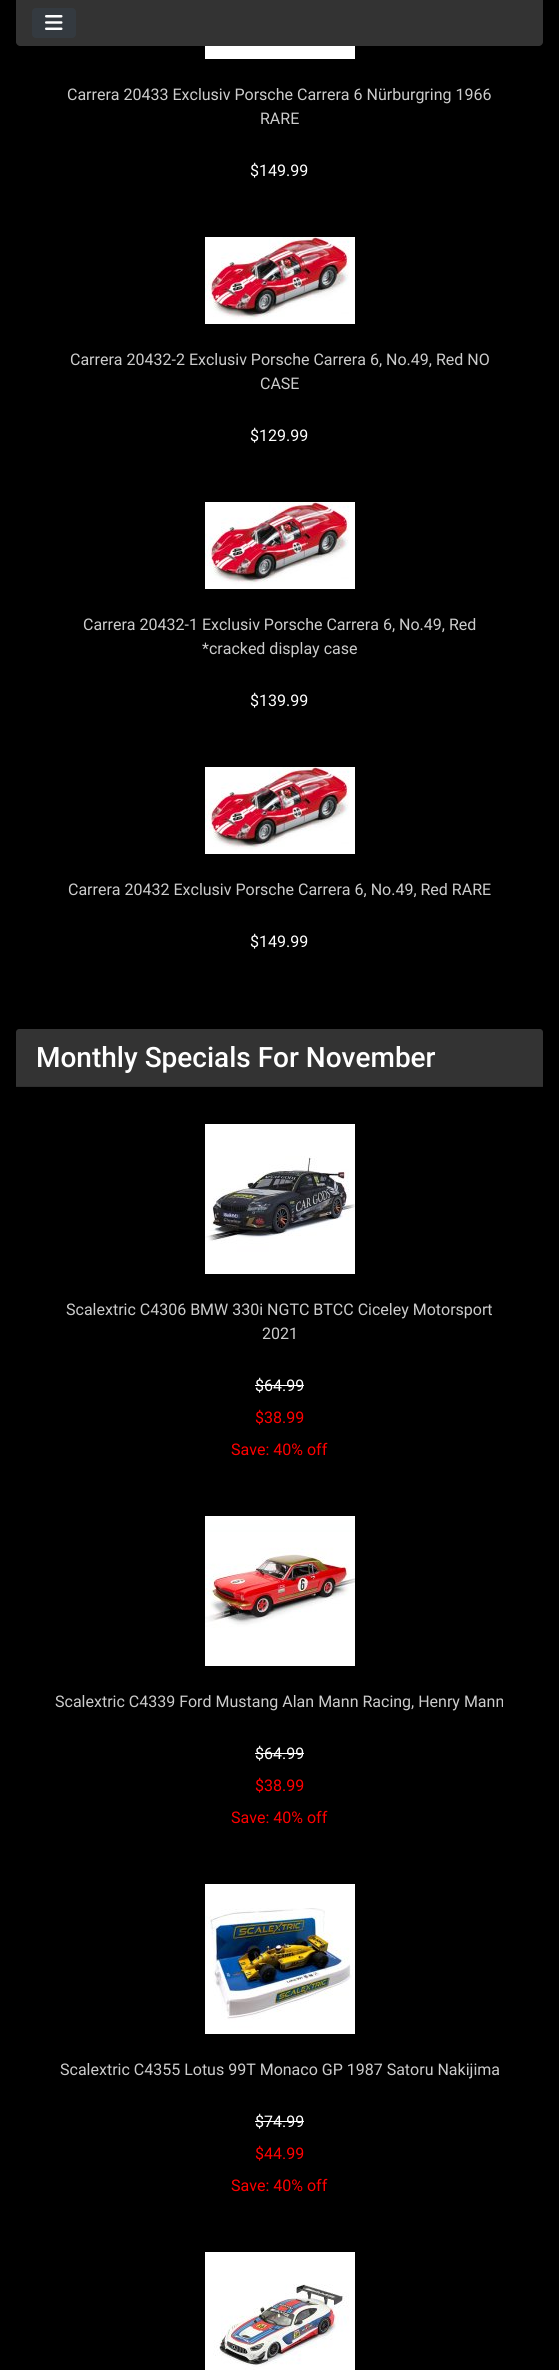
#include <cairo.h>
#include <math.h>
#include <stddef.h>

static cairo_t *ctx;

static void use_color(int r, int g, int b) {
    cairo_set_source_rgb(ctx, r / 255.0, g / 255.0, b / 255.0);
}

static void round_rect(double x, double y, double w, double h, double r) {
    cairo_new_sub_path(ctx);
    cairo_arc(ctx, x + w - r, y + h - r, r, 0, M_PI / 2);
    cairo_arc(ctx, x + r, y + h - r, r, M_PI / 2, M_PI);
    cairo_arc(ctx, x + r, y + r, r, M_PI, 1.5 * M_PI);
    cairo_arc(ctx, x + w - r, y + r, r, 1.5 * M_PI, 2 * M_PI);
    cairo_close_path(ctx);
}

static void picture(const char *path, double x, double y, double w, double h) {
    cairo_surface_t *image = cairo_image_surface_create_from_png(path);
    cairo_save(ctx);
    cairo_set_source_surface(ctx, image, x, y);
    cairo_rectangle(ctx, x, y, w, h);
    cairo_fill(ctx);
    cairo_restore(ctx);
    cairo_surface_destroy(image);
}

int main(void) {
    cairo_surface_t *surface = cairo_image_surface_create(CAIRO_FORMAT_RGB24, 559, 2370);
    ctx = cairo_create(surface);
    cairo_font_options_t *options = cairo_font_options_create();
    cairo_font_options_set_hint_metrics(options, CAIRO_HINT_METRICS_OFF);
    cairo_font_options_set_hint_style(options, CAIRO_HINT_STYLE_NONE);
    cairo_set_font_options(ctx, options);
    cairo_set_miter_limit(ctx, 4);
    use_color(0, 0, 0);
    cairo_paint(ctx);
    use_color(51, 51, 51);
    cairo_new_path(ctx);
    cairo_move_to(ctx, 16, 0);
    cairo_line_to(ctx, 543, 0);
    cairo_line_to(ctx, 543, 42);
    cairo_curve_to(ctx, 543, 44, 541, 46, 539, 46);
    cairo_line_to(ctx, 20, 46);
    cairo_curve_to(ctx, 18, 46, 16, 44, 16, 42);
    cairo_close_path(ctx);
    cairo_fill(ctx);
    use_color(52, 58, 64);
    round_rect(32.5, 8.5, 43, 29, 3.5);
    cairo_fill_preserve(ctx);
    cairo_set_line_width(ctx, 1);
    cairo_stroke(ctx);
    picture("img1.png", 45, 15, 18, 15);
    picture("img2.png", 205, 46, 150, 13);
    cairo_select_font_face(ctx, "Roboto", CAIRO_FONT_SLANT_NORMAL, CAIRO_FONT_WEIGHT_NORMAL);
    cairo_set_font_size(ctx, 16);
    use_color(204, 204, 204);
    cairo_move_to(ctx, 67, 100);
    cairo_show_text(ctx, "Carrera 20433 Exclusiv Porsche Carrera 6 Nürburgring 1966");
    cairo_move_to(ctx, 260, 124);
    cairo_show_text(ctx, "RARE");
    use_color(255, 255, 255);
    cairo_move_to(ctx, 250, 176);
    cairo_show_text(ctx, "$149.99");
    picture("img3.png", 205, 237, 150, 87);
    use_color(204, 204, 204);
    cairo_move_to(ctx, 70, 365);
    cairo_show_text(ctx, "Carrera 20432-2 Exclusiv Porsche Carrera 6, No.49, Red NO");
    cairo_move_to(ctx, 260, 389);
    cairo_show_text(ctx, "CASE");
    use_color(255, 255, 255);
    cairo_move_to(ctx, 250, 441);
    cairo_show_text(ctx, "$129.99");
    picture("img3.png", 205, 502, 150, 87);
    use_color(204, 204, 204);
    cairo_move_to(ctx, 83, 630);
    cairo_show_text(ctx, "Carrera 20432-1 Exclusiv Porsche Carrera 6, No.49, Red");
    cairo_move_to(ctx, 202, 654);
    cairo_show_text(ctx, "*cracked display case");
    use_color(255, 255, 255);
    cairo_move_to(ctx, 250, 706);
    cairo_show_text(ctx, "$139.99");
    picture("img3.png", 205, 767, 150, 87);
    use_color(204, 204, 204);
    cairo_move_to(ctx, 68, 895);
    cairo_show_text(ctx, "Carrera 20432 Exclusiv Porsche Carrera 6, No.49, Red RARE");
    use_color(255, 255, 255);
    cairo_move_to(ctx, 250, 947);
    cairo_show_text(ctx, "$149.99");
    use_color(51, 51, 51);
    cairo_new_path(ctx);
    cairo_move_to(ctx, 19, 1029);
    cairo_line_to(ctx, 540, 1029);
    cairo_curve_to(ctx, 541.5, 1029, 543, 1030.5, 543, 1032);
    cairo_line_to(ctx, 543, 1087);
    cairo_line_to(ctx, 16, 1087);
    cairo_line_to(ctx, 16, 1032);
    cairo_curve_to(ctx, 16, 1030.5, 17.5, 1029, 19, 1029);
    cairo_close_path(ctx);
    cairo_fill(ctx);
    use_color(45, 45, 45);
    cairo_rectangle(ctx, 16, 1086, 527, 1);
    cairo_fill(ctx);
    cairo_select_font_face(ctx, "Roboto Medium", CAIRO_FONT_SLANT_NORMAL, CAIRO_FONT_WEIGHT_NORMAL);
    cairo_set_font_size(ctx, 28);
    use_color(255, 255, 255);
    cairo_move_to(ctx, 36, 1067);
    cairo_show_text(ctx, "Monthly Specials For November");
    picture("img4.png", 205, 1124, 150, 150);
    cairo_select_font_face(ctx, "Roboto", CAIRO_FONT_SLANT_NORMAL, CAIRO_FONT_WEIGHT_NORMAL);
    cairo_set_font_size(ctx, 16);
    use_color(204, 204, 204);
    cairo_move_to(ctx, 66, 1315);
    cairo_show_text(ctx, "Scalextric C4306 BMW 330i NGTC BTCC Ciceley Motorsport");
    cairo_move_to(ctx, 262, 1339);
    cairo_show_text(ctx, "2021");
    use_color(255, 255, 255);
    cairo_move_to(ctx, 255, 1391);
    cairo_show_text(ctx, "$64.99");
    cairo_rectangle(ctx, 255, 1385, 49, 1);
    cairo_fill(ctx);
    use_color(255, 0, 0);
    cairo_move_to(ctx, 255, 1423);
    cairo_show_text(ctx, "$38.99");
    cairo_move_to(ctx, 231, 1455);
    cairo_show_text(ctx, "Save: 40% off");
    picture("img5.png", 205, 1516, 150, 150);
    use_color(204, 204, 204);
    cairo_move_to(ctx, 55, 1707);
    cairo_show_text(ctx, "Scalextric C4339 Ford Mustang Alan Mann Racing, Henry Mann");
    use_color(255, 255, 255);
    cairo_move_to(ctx, 255, 1759);
    cairo_show_text(ctx, "$64.99");
    cairo_rectangle(ctx, 255, 1753, 49, 1);
    cairo_fill(ctx);
    use_color(255, 0, 0);
    cairo_move_to(ctx, 255, 1791);
    cairo_show_text(ctx, "$38.99");
    cairo_move_to(ctx, 231, 1823);
    cairo_show_text(ctx, "Save: 40% off");
    picture("img6.png", 205, 1884, 150, 150);
    use_color(204, 204, 204);
    cairo_move_to(ctx, 60, 2075);
    cairo_show_text(ctx, "Scalextric C4355 Lotus 99T Monaco GP 1987 Satoru Nakijima");
    use_color(255, 255, 255);
    cairo_move_to(ctx, 255, 2127);
    cairo_show_text(ctx, "$74.99");
    cairo_rectangle(ctx, 255, 2121, 49, 1);
    cairo_fill(ctx);
    use_color(255, 0, 0);
    cairo_move_to(ctx, 255, 2159);
    cairo_show_text(ctx, "$44.99");
    cairo_move_to(ctx, 231, 2191);
    cairo_show_text(ctx, "Save: 40% off");
    picture("img7.png", 205, 2252, 150, 118);
    cairo_surface_write_to_png(surface, "result.png");
    cairo_font_options_destroy(options);
    cairo_destroy(ctx);
    cairo_surface_destroy(surface);
    return 0;
}
